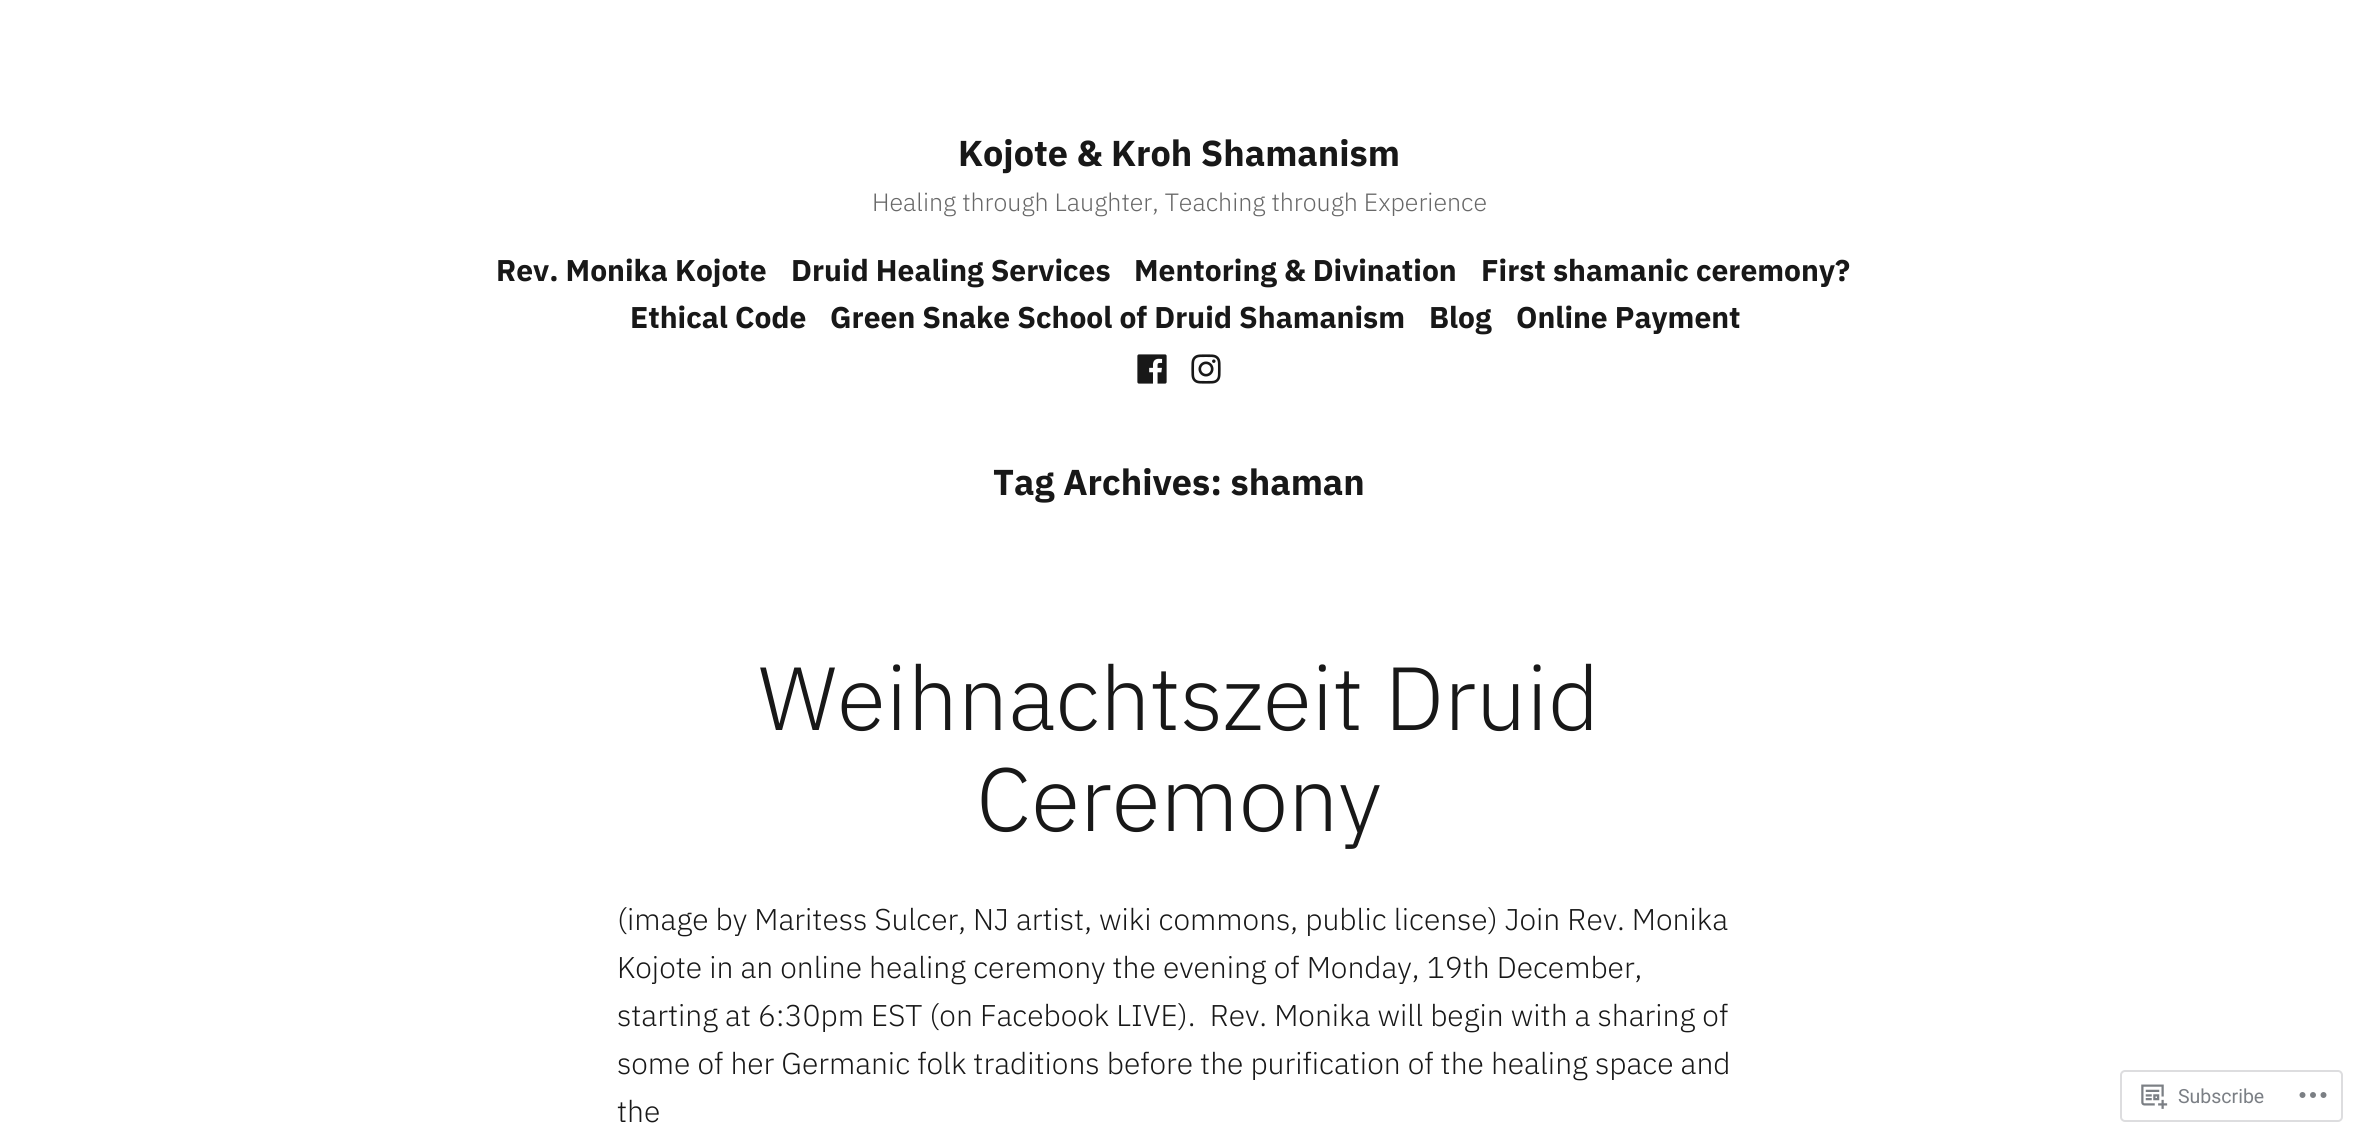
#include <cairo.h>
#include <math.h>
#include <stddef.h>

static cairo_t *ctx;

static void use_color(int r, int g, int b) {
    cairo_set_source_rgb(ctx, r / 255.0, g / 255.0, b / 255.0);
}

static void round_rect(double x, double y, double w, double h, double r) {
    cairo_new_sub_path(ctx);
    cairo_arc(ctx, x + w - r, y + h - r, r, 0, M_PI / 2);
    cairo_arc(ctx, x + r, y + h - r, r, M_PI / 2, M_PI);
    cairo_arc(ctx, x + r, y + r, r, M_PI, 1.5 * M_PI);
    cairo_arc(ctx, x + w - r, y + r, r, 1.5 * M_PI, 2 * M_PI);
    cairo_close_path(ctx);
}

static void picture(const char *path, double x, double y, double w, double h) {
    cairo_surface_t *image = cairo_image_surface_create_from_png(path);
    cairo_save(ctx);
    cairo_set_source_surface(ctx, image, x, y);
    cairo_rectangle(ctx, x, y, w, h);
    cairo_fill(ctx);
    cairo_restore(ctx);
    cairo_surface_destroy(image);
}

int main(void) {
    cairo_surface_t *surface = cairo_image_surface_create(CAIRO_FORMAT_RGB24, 2357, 1136);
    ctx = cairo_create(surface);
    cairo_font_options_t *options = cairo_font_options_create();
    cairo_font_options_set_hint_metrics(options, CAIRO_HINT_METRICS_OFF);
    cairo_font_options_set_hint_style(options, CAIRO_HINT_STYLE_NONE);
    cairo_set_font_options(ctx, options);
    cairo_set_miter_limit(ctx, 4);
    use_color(255, 255, 255);
    cairo_paint(ctx);
    cairo_select_font_face(ctx, "IBM Plex Sans", CAIRO_FONT_SLANT_NORMAL, CAIRO_FONT_WEIGHT_BOLD);
    cairo_set_font_size(ctx, 36);
    use_color(24, 24, 24);
    cairo_move_to(ctx, 958, 166);
    cairo_show_text(ctx, "Kojote & Kroh Shamanism");
    cairo_select_font_face(ctx, "IBM Plex Sans Light", CAIRO_FONT_SLANT_NORMAL, CAIRO_FONT_WEIGHT_NORMAL);
    cairo_set_font_size(ctx, 25);
    use_color(104, 104, 104);
    cairo_move_to(ctx, 872, 211);
    cairo_show_text(ctx, "Healing through Laughter, Teaching through Experience");
    cairo_select_font_face(ctx, "IBM Plex Sans", CAIRO_FONT_SLANT_NORMAL, CAIRO_FONT_WEIGHT_BOLD);
    cairo_set_font_size(ctx, 30);
    use_color(24, 24, 24);
    cairo_move_to(ctx, 496, 281);
    cairo_show_text(ctx, "Rev. Monika Kojote");
    cairo_move_to(ctx, 791, 281);
    cairo_show_text(ctx, "Druid Healing Services");
    cairo_move_to(ctx, 1134, 281);
    cairo_show_text(ctx, "Mentoring & Divination");
    cairo_move_to(ctx, 1481, 281);
    cairo_show_text(ctx, "First shamanic ceremony?");
    cairo_move_to(ctx, 630, 328);
    cairo_show_text(ctx, "Ethical Code");
    cairo_move_to(ctx, 830, 328);
    cairo_show_text(ctx, "Green Snake School of Druid Shamanism");
    cairo_move_to(ctx, 1429, 328);
    cairo_show_text(ctx, "Blog");
    cairo_move_to(ctx, 1516, 328);
    cairo_show_text(ctx, "Online Payment");
    picture("img1.png", 1137, 354, 30, 30);
    picture("img2.png", 1191, 354, 30, 30);
    cairo_set_font_size(ctx, 36);
    cairo_move_to(ctx, 993, 495);
    cairo_show_text(ctx, "Tag Archives: shaman");
    cairo_select_font_face(ctx, "IBM Plex Sans Light", CAIRO_FONT_SLANT_NORMAL, CAIRO_FONT_WEIGHT_NORMAL);
    cairo_set_font_size(ctx, 89.5);
    cairo_move_to(ctx, 758, 730);
    cairo_show_text(ctx, "Weihnachtszeit Druid");
    cairo_move_to(ctx, 976, 831);
    cairo_show_text(ctx, "Ceremony");
    cairo_set_font_size(ctx, 30);
    cairo_move_to(ctx, 617, 930);
    cairo_show_text(ctx, "(image by Maritess Sulcer, NJ artist, wiki commons, public license) Join Rev. Monika");
    cairo_move_to(ctx, 617, 978);
    cairo_show_text(ctx, "Kojote in an online healing ceremony the evening of Monday, 19th December,");
    cairo_move_to(ctx, 617, 1026);
    cairo_show_text(ctx, "starting at 6:30pm EST (on Facebook LIVE).  Rev. Monika will begin with a sharing of");
    cairo_move_to(ctx, 617, 1074);
    cairo_show_text(ctx, "some of her Germanic folk traditions before the purification of the healing space and");
    cairo_move_to(ctx, 617, 1122);
    cairo_show_text(ctx, "the");
    round_rect(2121, 1071, 221, 50, 4);
    use_color(221, 221, 223);
    cairo_stroke(ctx);
    picture("img3.png", 2141, 1084, 27, 25);
    cairo_select_font_face(ctx, "Roboto", CAIRO_FONT_SLANT_NORMAL, CAIRO_FONT_WEIGHT_NORMAL);
    cairo_set_font_size(ctx, 19.5);
    use_color(123, 127, 133);
    cairo_move_to(ctx, 2178, 1103);
    cairo_show_text(ctx, "Subscribe");
    picture("img4.png", 2299, 1092, 28, 6);
    cairo_surface_write_to_png(surface, "result.png");
    cairo_font_options_destroy(options);
    cairo_destroy(ctx);
    cairo_surface_destroy(surface);
    return 0;
}
